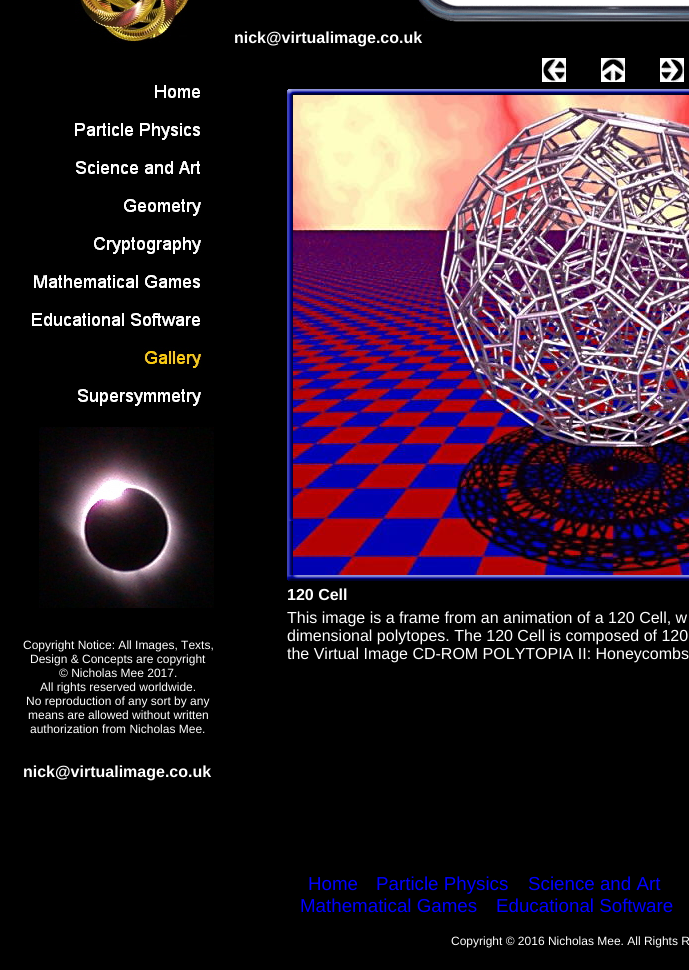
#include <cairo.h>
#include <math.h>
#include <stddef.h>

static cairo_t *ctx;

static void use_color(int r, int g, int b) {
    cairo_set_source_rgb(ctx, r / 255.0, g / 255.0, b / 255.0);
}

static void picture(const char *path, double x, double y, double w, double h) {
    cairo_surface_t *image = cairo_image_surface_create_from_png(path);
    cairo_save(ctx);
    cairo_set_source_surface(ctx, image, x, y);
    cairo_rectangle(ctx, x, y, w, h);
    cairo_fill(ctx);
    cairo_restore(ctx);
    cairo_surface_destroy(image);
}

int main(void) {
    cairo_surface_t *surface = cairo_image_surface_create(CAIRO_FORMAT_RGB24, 689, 970);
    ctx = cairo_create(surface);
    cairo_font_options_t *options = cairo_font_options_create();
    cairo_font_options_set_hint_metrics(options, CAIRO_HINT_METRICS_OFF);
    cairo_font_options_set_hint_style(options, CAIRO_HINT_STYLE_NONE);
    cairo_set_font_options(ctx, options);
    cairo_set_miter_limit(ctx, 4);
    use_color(0, 0, 0);
    cairo_paint(ctx);
    picture("img1.png", 75, 0, 114, 43);
    picture("img2.png", 417, 0, 272, 22);
    cairo_select_font_face(ctx, "Liberation Sans", CAIRO_FONT_SLANT_NORMAL, CAIRO_FONT_WEIGHT_BOLD);
    cairo_set_font_size(ctx, 16);
    use_color(255, 255, 255);
    cairo_move_to(ctx, 234, 43);
    cairo_show_text(ctx, "nick@virtualimage.co.uk");
    picture("img3.png", 542, 58, 24, 24);
    picture("img4.png", 601, 58, 24, 24);
    picture("img5.png", 660, 58, 24, 24);
    picture("img6.png", 287, 89, 6, 6);
    picture("img7.png", 293, 89, 396, 6);
    picture("img8.png", 287, 95, 6, 480);
    picture("img9.png", 293, 95, 396, 480);
    picture("img10.png", 287, 575, 6, 6);
    picture("img11.png", 293, 575, 396, 6);
    cairo_move_to(ctx, 287, 600);
    cairo_show_text(ctx, "120 Cell");
    cairo_select_font_face(ctx, "Liberation Sans", CAIRO_FONT_SLANT_NORMAL, CAIRO_FONT_WEIGHT_NORMAL);
    cairo_move_to(ctx, 287, 623);
    cairo_show_text(ctx, "This image is a frame from an animation of a 120 Cell, w");
    cairo_move_to(ctx, 287, 641);
    cairo_show_text(ctx, "dimensional polytopes. The 120 Cell is composed of 120");
    cairo_move_to(ctx, 287, 659);
    cairo_show_text(ctx, "the Virtual Image CD-ROM POLYTOPIA II: Honeycombs");
    picture("img12.png", 155, 85, 45, 13);
    picture("img13.png", 75, 123, 125, 17);
    picture("img14.png", 76, 161, 124, 13);
    picture("img15.png", 124, 199, 77, 17);
    picture("img16.png", 94, 237, 107, 17);
    picture("img17.png", 34, 275, 166, 13);
    picture("img18.png", 32, 313, 168, 13);
    picture("img19.png", 144, 347, 58, 21);
    picture("img20.png", 78, 389, 123, 17);
    picture("img21.png", 39, 427, 175, 181);
    cairo_set_font_size(ctx, 12);
    cairo_move_to(ctx, 23, 649);
    cairo_show_text(ctx, "Copyright Notice: All Images, Texts,");
    cairo_move_to(ctx, 30, 663);
    cairo_show_text(ctx, "Design & Concepts are copyright");
    cairo_move_to(ctx, 59, 677);
    cairo_show_text(ctx, "© Nicholas Mee 2017.");
    cairo_move_to(ctx, 40, 691);
    cairo_show_text(ctx, "All rights reserved worldwide.");
    cairo_move_to(ctx, 26, 705);
    cairo_show_text(ctx, "No reproduction of any sort by any");
    cairo_move_to(ctx, 28, 719);
    cairo_show_text(ctx, "means are allowed without written");
    cairo_move_to(ctx, 30, 733);
    cairo_show_text(ctx, "authorization from Nicholas Mee.");
    cairo_select_font_face(ctx, "Liberation Sans", CAIRO_FONT_SLANT_NORMAL, CAIRO_FONT_WEIGHT_BOLD);
    cairo_set_font_size(ctx, 16);
    cairo_move_to(ctx, 23, 777);
    cairo_show_text(ctx, "nick@virtualimage.co.uk");
    cairo_select_font_face(ctx, "Liberation Sans", CAIRO_FONT_SLANT_NORMAL, CAIRO_FONT_WEIGHT_NORMAL);
    cairo_set_font_size(ctx, 18.75);
    use_color(0, 0, 255);
    cairo_move_to(ctx, 308, 890);
    cairo_show_text(ctx, "Home");
    cairo_move_to(ctx, 376, 890);
    cairo_show_text(ctx, "Particle Physics");
    cairo_move_to(ctx, 528, 890);
    cairo_show_text(ctx, "Science and Art");
    cairo_move_to(ctx, 300, 912);
    cairo_show_text(ctx, "Mathematical Games");
    cairo_move_to(ctx, 496, 912);
    cairo_show_text(ctx, "Educational Software");
    cairo_set_font_size(ctx, 12);
    use_color(255, 255, 255);
    cairo_move_to(ctx, 451, 945);
    cairo_show_text(ctx, "Copyright © 2016 Nicholas Mee. All Rights R");
    cairo_surface_write_to_png(surface, "result.png");
    cairo_font_options_destroy(options);
    cairo_destroy(ctx);
    cairo_surface_destroy(surface);
    return 0;
}
